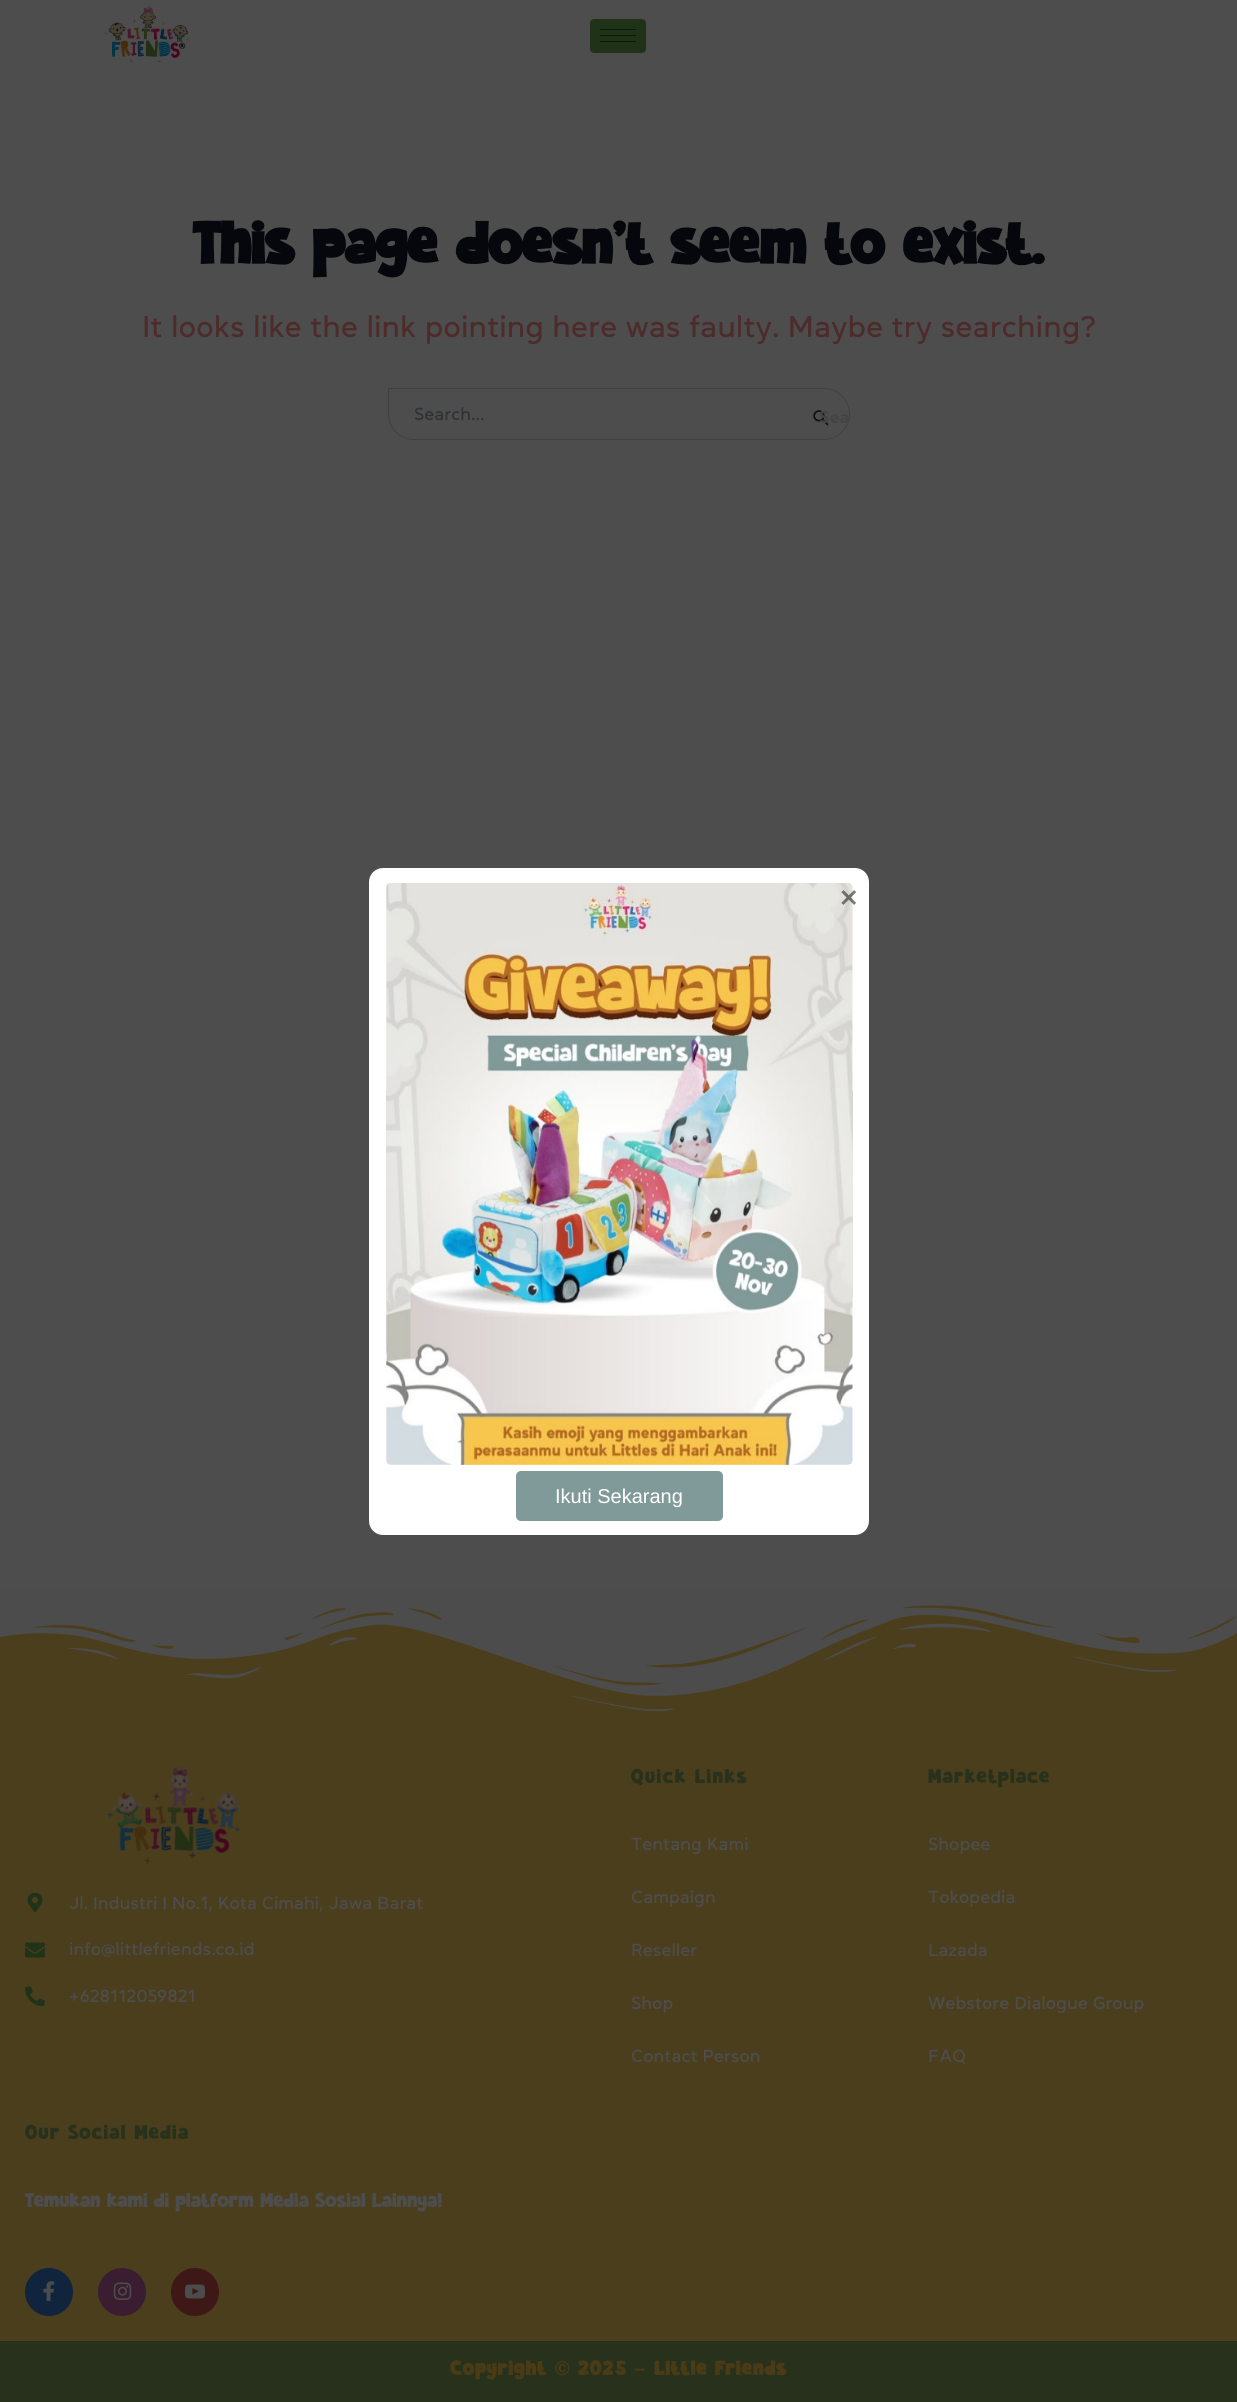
#include <cairo.h>
#include <math.h>
#include <stddef.h>

static cairo_t *ctx;

static void use_color(int r, int g, int b) {
    cairo_set_source_rgb(ctx, r / 255.0, g / 255.0, b / 255.0);
}

static void spaced_text(double x, double y, const char *s, double letter, double word) {
    cairo_move_to(ctx, x, y);
    while (*s) {
        char ch[5] = {0};
        int n = 0;
        do ch[n++] = *s++; while ((*s & 0xC0) == 0x80);
        cairo_show_text(ctx, ch);
        cairo_rel_move_to(ctx, letter + word * (*ch == ' '), 0);
    }
}

static void round_rect(double x, double y, double w, double h, double r) {
    cairo_new_sub_path(ctx);
    cairo_arc(ctx, x + w - r, y + h - r, r, 0, M_PI / 2);
    cairo_arc(ctx, x + r, y + h - r, r, M_PI / 2, M_PI);
    cairo_arc(ctx, x + r, y + r, r, M_PI, 1.5 * M_PI);
    cairo_arc(ctx, x + w - r, y + r, r, 1.5 * M_PI, 2 * M_PI);
    cairo_close_path(ctx);
}

static void picture(const char *path, double x, double y, double w, double h) {
    cairo_surface_t *image = cairo_image_surface_create_from_png(path);
    cairo_save(ctx);
    cairo_set_source_surface(ctx, image, x, y);
    cairo_rectangle(ctx, x, y, w, h);
    cairo_fill(ctx);
    cairo_restore(ctx);
    cairo_surface_destroy(image);
}

int main(void) {
    cairo_surface_t *surface = cairo_image_surface_create(CAIRO_FORMAT_RGB24, 1237, 2402);
    ctx = cairo_create(surface);
    cairo_font_options_t *options = cairo_font_options_create();
    cairo_font_options_set_hint_metrics(options, CAIRO_HINT_METRICS_OFF);
    cairo_font_options_set_hint_style(options, CAIRO_HINT_STYLE_NONE);
    cairo_set_font_options(ctx, options);
    cairo_set_miter_limit(ctx, 4);
    use_color(77, 77, 77);
    cairo_paint(ctx);
    picture("img1.png", 104, 6, 86, 57);
    use_color(32, 51, 24);
    round_rect(590, 19, 56, 34, 4);
    cairo_fill(ctx);
    use_color(16, 26, 12);
    cairo_rectangle(ctx, 600, 29, 36, 1);
    cairo_fill(ctx);
    cairo_rectangle(ctx, 600, 35, 36, 1);
    cairo_fill(ctx);
    cairo_rectangle(ctx, 600, 41, 36, 1);
    cairo_fill(ctx);
    cairo_select_font_face(ctx, "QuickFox", CAIRO_FONT_SLANT_NORMAL, CAIRO_FONT_WEIGHT_BOLD);
    cairo_set_font_size(ctx, 60);
    use_color(5, 7, 13);
    cairo_move_to(ctx, 193, 264);
    cairo_show_text(ctx, "This page doesn't seem to exist.");
    cairo_select_font_face(ctx, "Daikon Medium", CAIRO_FONT_SLANT_NORMAL, CAIRO_FONT_WEIGHT_NORMAL);
    cairo_set_font_size(ctx, 30);
    use_color(77, 43, 43);
    cairo_move_to(ctx, 142, 337);
    cairo_show_text(ctx, "It looks like the link pointing here was faulty. Maybe try searching?");
    cairo_new_path(ctx);
    cairo_move_to(ctx, 388.5, 388.5);
    cairo_line_to(ctx, 824, 388.5);
    cairo_curve_to(ctx, 838, 388.5, 849.5, 400, 849.5, 414);
    cairo_curve_to(ctx, 849.5, 428, 838, 439.5, 824, 439.5);
    cairo_line_to(ctx, 414, 439.5);
    cairo_curve_to(ctx, 400, 439.5, 388.5, 428, 388.5, 414);
    cairo_close_path(ctx);
    use_color(64, 64, 64);
    cairo_set_line_width(ctx, 1);
    cairo_stroke(ctx);
    cairo_set_font_size(ctx, 17.5);
    use_color(47, 49, 53);
    cairo_move_to(ctx, 414, 420);
    cairo_show_text(ctx, "Search...");
    picture("img2.png", 813, 410, 16, 16);
    cairo_select_font_face(ctx, "Daikon", CAIRO_FONT_SLANT_NORMAL, CAIRO_FONT_WEIGHT_BOLD);
    use_color(68, 68, 68);
    spaced_text(819, 423, "Sea", 0.5, 0);
    use_color(74, 62, 29);
    cairo_rectangle(ctx, 0, 1605, 1237, 736);
    cairo_fill(ctx);
    picture("img3.png", 0, 1590, 1237, 122);
    picture("img4.png", 106, 1765, 136, 99);
    picture("img5.png", 27, 1893, 16, 20);
    cairo_select_font_face(ctx, "Daikon Medium", CAIRO_FONT_SLANT_NORMAL, CAIRO_FONT_WEIGHT_NORMAL);
    use_color(77, 77, 77);
    cairo_move_to(ctx, 69, 1909);
    cairo_show_text(ctx, "Jl. Industri I No.1, Kota Cimahi, Jawa Barat");
    picture("img6.png", 25, 1942, 20, 16);
    cairo_move_to(ctx, 69, 1955);
    cairo_show_text(ctx, "info@littlefriends.co.id");
    picture("img7.png", 25, 1986, 20, 20);
    cairo_move_to(ctx, 69, 2002);
    cairo_show_text(ctx, "+628112059821");
    cairo_select_font_face(ctx, "QuickFox", CAIRO_FONT_SLANT_NORMAL, CAIRO_FONT_WEIGHT_NORMAL);
    cairo_set_font_size(ctx, 20);
    use_color(40, 49, 27);
    spaced_text(631, 1783, "Quick Links", 1.6, 0);
    cairo_select_font_face(ctx, "Daikon Medium", CAIRO_FONT_SLANT_NORMAL, CAIRO_FONT_WEIGHT_NORMAL);
    cairo_set_font_size(ctx, 17.5);
    use_color(77, 77, 77);
    cairo_move_to(ctx, 631, 1850);
    cairo_show_text(ctx, "Tentang Kami");
    cairo_move_to(ctx, 631, 1903);
    cairo_show_text(ctx, "Campaign");
    cairo_move_to(ctx, 631, 1956);
    cairo_show_text(ctx, "Reseller");
    cairo_move_to(ctx, 631, 2009);
    cairo_show_text(ctx, "Shop");
    cairo_move_to(ctx, 631, 2062);
    cairo_show_text(ctx, "Contact Person");
    cairo_select_font_face(ctx, "QuickFox", CAIRO_FONT_SLANT_NORMAL, CAIRO_FONT_WEIGHT_NORMAL);
    cairo_set_font_size(ctx, 20);
    use_color(40, 49, 27);
    spaced_text(928, 1783, "Marketplace", 1.25, 0);
    cairo_select_font_face(ctx, "Daikon Medium", CAIRO_FONT_SLANT_NORMAL, CAIRO_FONT_WEIGHT_NORMAL);
    cairo_set_font_size(ctx, 17.5);
    use_color(77, 77, 77);
    cairo_move_to(ctx, 928, 1850);
    cairo_show_text(ctx, "Shopee");
    cairo_move_to(ctx, 928, 1903);
    cairo_show_text(ctx, "Tokopedia");
    cairo_move_to(ctx, 928, 1956);
    cairo_show_text(ctx, "Lazada");
    cairo_move_to(ctx, 928, 2009);
    cairo_show_text(ctx, "Webstore Dialogue Group");
    cairo_move_to(ctx, 928, 2062);
    cairo_show_text(ctx, "FAQ");
    cairo_select_font_face(ctx, "QuickFox", CAIRO_FONT_SLANT_NORMAL, CAIRO_FONT_WEIGHT_NORMAL);
    cairo_set_font_size(ctx, 20);
    use_color(40, 49, 27);
    spaced_text(25, 2139, "Our Social Media", 1.25, 0);
    use_color(77, 77, 77);
    cairo_move_to(ctx, 25, 2207);
    cairo_show_text(ctx, "Temukan kami di platform Media Sosial Lainnya!");
    use_color(17, 36, 61);
    cairo_new_path(ctx);
    cairo_arc(ctx, 49, 2292, 24, 0, 2 * M_PI);
    cairo_fill(ctx);
    picture("img8.png", 43, 2281, 12, 20);
    use_color(58, 29, 48);
    cairo_arc(ctx, 122, 2292, 24, 0, 2 * M_PI);
    cairo_fill(ctx);
    picture("img9.png", 113, 2282, 19, 18);
    use_color(62, 23, 23);
    cairo_arc(ctx, 195, 2292, 24, 0, 2 * M_PI);
    cairo_fill(ctx);
    picture("img10.png", 185, 2284, 20, 15);
    use_color(40, 49, 27);
    cairo_rectangle(ctx, 0, 2341, 1237, 61);
    cairo_fill(ctx);
    cairo_select_font_face(ctx, "QuickFox", CAIRO_FONT_SLANT_NORMAL, CAIRO_FONT_WEIGHT_BOLD);
    use_color(74, 59, 23);
    spaced_text(450, 2375, "Copyright", 1.1, 0);
    cairo_select_font_face(ctx, "Liberation Sans", CAIRO_FONT_SLANT_NORMAL, CAIRO_FONT_WEIGHT_BOLD);
    spaced_text(555, 2375, "©", 1.1, 0);
    cairo_select_font_face(ctx, "QuickFox", CAIRO_FONT_SLANT_NORMAL, CAIRO_FONT_WEIGHT_BOLD);
    spaced_text(578, 2375, "2025", 1.1, 0);
    cairo_select_font_face(ctx, "Liberation Sans", CAIRO_FONT_SLANT_NORMAL, CAIRO_FONT_WEIGHT_BOLD);
    spaced_text(634, 2375, "–", 1.1, 0);
    cairo_select_font_face(ctx, "QuickFox", CAIRO_FONT_SLANT_NORMAL, CAIRO_FONT_WEIGHT_BOLD);
    spaced_text(654, 2375, "Little Friends", 1.1, 0);
    use_color(255, 255, 255);
    round_rect(369, 868, 500, 667, 14);
    cairo_fill(ctx);
    picture("img12.png", 386, 883, 467, 582);
    picture("img11.png", 841, 890, 15, 15);
    use_color(128, 154, 153);
    round_rect(516, 1471, 207, 50, 5);
    cairo_fill(ctx);
    cairo_select_font_face(ctx, "Liberation Sans", CAIRO_FONT_SLANT_NORMAL, CAIRO_FONT_WEIGHT_NORMAL);
    use_color(255, 255, 255);
    cairo_move_to(ctx, 555, 1503);
    cairo_show_text(ctx, "Ikuti Sekarang");
    cairo_surface_write_to_png(surface, "result.png");
    cairo_font_options_destroy(options);
    cairo_destroy(ctx);
    cairo_surface_destroy(surface);
    return 0;
}
